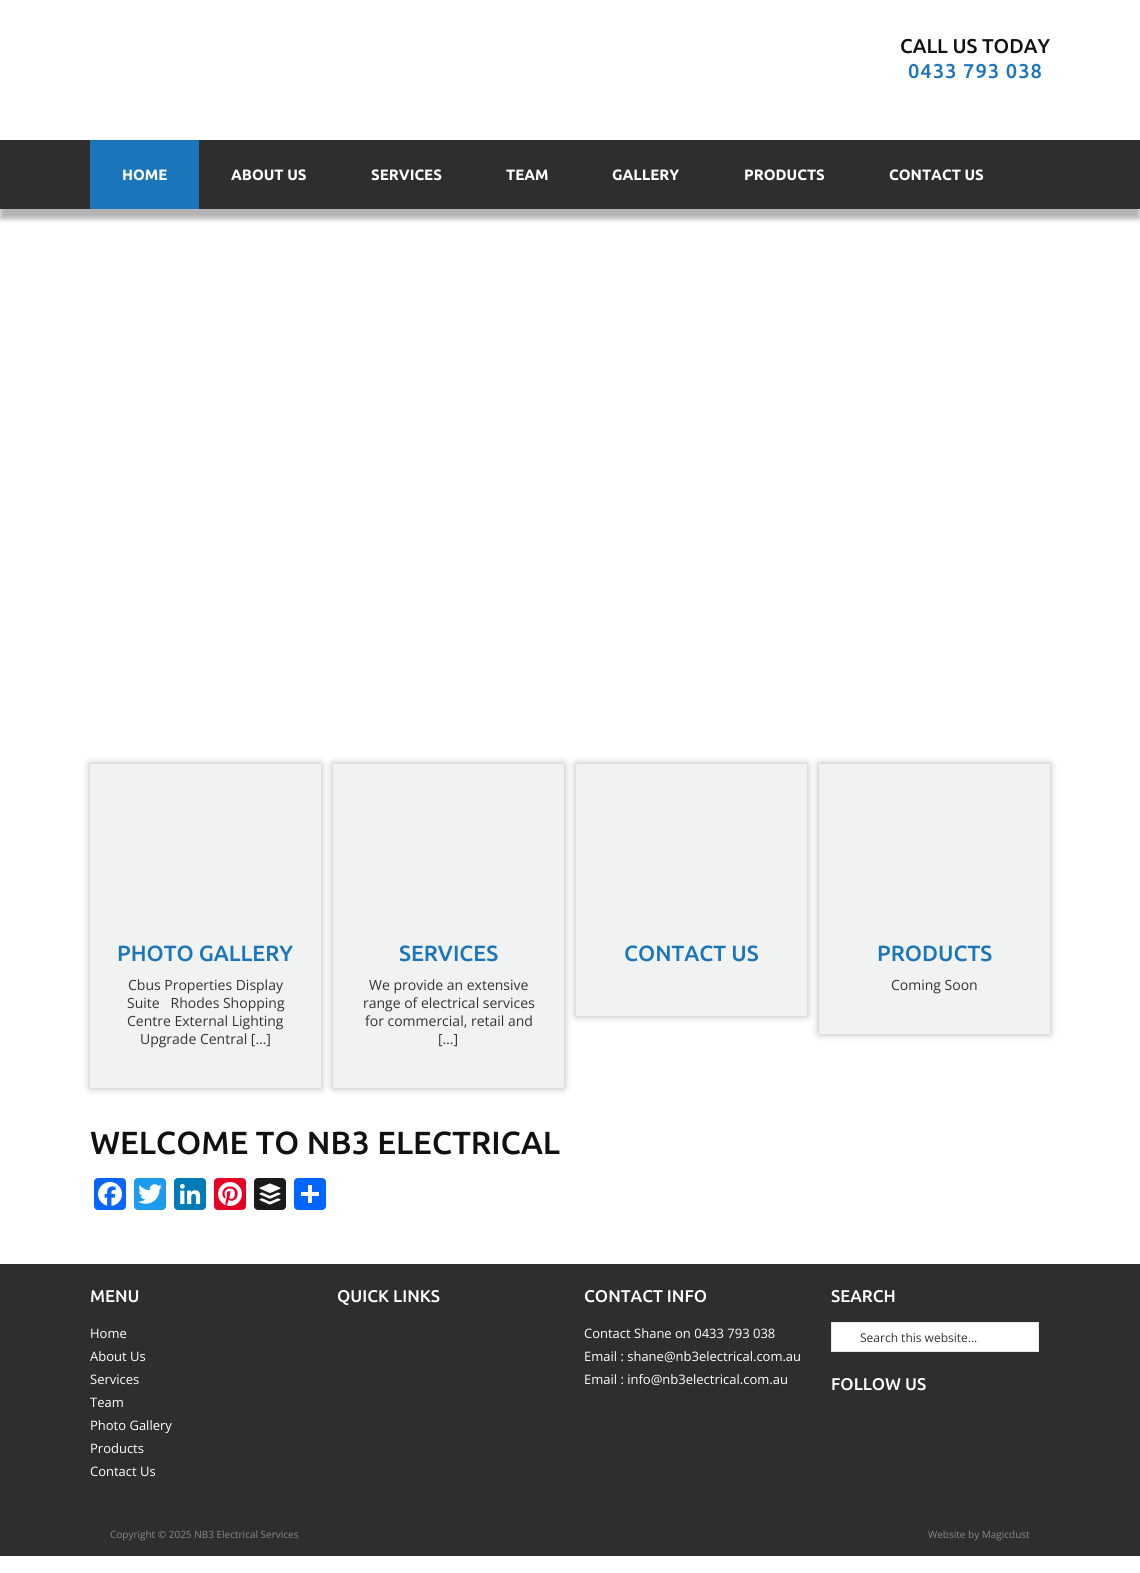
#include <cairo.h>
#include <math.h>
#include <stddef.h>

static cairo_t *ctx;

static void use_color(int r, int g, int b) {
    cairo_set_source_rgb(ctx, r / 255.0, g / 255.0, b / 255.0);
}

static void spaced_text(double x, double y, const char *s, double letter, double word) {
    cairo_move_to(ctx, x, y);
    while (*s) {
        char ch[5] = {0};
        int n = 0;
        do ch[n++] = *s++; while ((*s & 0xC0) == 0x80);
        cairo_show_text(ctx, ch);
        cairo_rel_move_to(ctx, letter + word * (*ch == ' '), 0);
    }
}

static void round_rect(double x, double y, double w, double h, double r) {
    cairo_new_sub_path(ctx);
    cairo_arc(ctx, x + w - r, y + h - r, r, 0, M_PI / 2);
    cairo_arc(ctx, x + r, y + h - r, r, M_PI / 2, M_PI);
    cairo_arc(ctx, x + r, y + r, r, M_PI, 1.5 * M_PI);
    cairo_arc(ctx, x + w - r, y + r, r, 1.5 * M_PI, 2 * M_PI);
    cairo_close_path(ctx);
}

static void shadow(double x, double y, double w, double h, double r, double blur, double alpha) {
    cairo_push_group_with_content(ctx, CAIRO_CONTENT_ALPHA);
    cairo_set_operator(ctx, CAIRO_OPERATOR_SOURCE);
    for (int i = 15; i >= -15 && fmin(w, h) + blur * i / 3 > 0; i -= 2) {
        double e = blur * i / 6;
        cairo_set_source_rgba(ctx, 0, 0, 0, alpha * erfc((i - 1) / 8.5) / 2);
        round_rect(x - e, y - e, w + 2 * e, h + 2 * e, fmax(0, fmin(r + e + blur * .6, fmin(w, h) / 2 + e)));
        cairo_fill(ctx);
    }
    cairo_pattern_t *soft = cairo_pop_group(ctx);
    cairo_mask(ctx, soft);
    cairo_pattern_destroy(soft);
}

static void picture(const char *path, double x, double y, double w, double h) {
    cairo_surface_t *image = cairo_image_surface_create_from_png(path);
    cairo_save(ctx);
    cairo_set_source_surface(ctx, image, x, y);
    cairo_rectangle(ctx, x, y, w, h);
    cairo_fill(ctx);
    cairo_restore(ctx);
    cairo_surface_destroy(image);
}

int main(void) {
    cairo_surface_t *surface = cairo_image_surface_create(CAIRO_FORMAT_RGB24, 1140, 1573);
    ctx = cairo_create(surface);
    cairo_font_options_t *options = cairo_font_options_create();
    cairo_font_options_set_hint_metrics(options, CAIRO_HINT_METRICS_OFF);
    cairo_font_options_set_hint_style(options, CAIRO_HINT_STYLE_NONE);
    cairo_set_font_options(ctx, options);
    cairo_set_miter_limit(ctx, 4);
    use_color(255, 255, 255);
    cairo_paint(ctx);
    cairo_select_font_face(ctx, "Ubuntu Medium", CAIRO_FONT_SLANT_NORMAL, CAIRO_FONT_WEIGHT_NORMAL);
    cairo_set_font_size(ctx, 20);
    use_color(17, 17, 17);
    cairo_move_to(ctx, 900, 53);
    cairo_show_text(ctx, "CALL US TODAY");
    use_color(27, 117, 187);
    spaced_text(908, 78, "0433 793 038", 1, 0);
    use_color(0, 0, 0);
    shadow(0, 150, 1140, 69, 0, 2.5, 0.3);
    use_color(47, 45, 46);
    cairo_rectangle(ctx, 0, 140, 1140, 69);
    cairo_fill(ctx);
    use_color(27, 117, 187);
    cairo_rectangle(ctx, 90, 140, 109, 69);
    cairo_fill(ctx);
    cairo_select_font_face(ctx, "Ubuntu", CAIRO_FONT_SLANT_NORMAL, CAIRO_FONT_WEIGHT_BOLD);
    cairo_set_font_size(ctx, 15);
    use_color(255, 255, 255);
    cairo_move_to(ctx, 122, 180);
    cairo_show_text(ctx, "HOME");
    cairo_move_to(ctx, 231, 180);
    cairo_show_text(ctx, "ABOUT US");
    cairo_move_to(ctx, 371, 180);
    cairo_show_text(ctx, "SERVICES");
    cairo_move_to(ctx, 506, 180);
    cairo_show_text(ctx, "TEAM");
    cairo_move_to(ctx, 612, 180);
    cairo_show_text(ctx, "GALLERY");
    cairo_move_to(ctx, 744, 180);
    cairo_show_text(ctx, "PRODUCTS");
    cairo_move_to(ctx, 889, 180);
    cairo_show_text(ctx, "CONTACT US");
    use_color(0, 0, 0);
    shadow(90, 764, 231, 324, 0, 4, 0.3);
    use_color(241, 242, 242);
    cairo_rectangle(ctx, 90, 764, 231, 324);
    cairo_fill(ctx);
    cairo_select_font_face(ctx, "Ubuntu Medium", CAIRO_FONT_SLANT_NORMAL, CAIRO_FONT_WEIGHT_NORMAL);
    cairo_set_font_size(ctx, 22);
    use_color(27, 117, 187);
    cairo_move_to(ctx, 117, 961);
    cairo_show_text(ctx, "PHOTO GALLERY");
    cairo_select_font_face(ctx, "Open Sans", CAIRO_FONT_SLANT_NORMAL, CAIRO_FONT_WEIGHT_NORMAL);
    cairo_set_font_size(ctx, 14);
    use_color(51, 51, 51);
    cairo_move_to(ctx, 128, 990);
    cairo_show_text(ctx, "Cbus Properties Display");
    cairo_move_to(ctx, 127, 1008);
    cairo_show_text(ctx, "Suite   Rhodes Shopping");
    cairo_move_to(ctx, 127, 1026);
    cairo_show_text(ctx, "Centre External Lighting");
    cairo_move_to(ctx, 140, 1044);
    cairo_show_text(ctx, "Upgrade Central […]");
    use_color(0, 0, 0);
    shadow(333, 764, 231, 324, 0, 4, 0.3);
    use_color(241, 242, 242);
    cairo_rectangle(ctx, 333, 764, 231, 324);
    cairo_fill(ctx);
    cairo_select_font_face(ctx, "Ubuntu Medium", CAIRO_FONT_SLANT_NORMAL, CAIRO_FONT_WEIGHT_NORMAL);
    cairo_set_font_size(ctx, 22);
    use_color(27, 117, 187);
    cairo_move_to(ctx, 399, 961);
    cairo_show_text(ctx, "SERVICES");
    cairo_select_font_face(ctx, "Open Sans", CAIRO_FONT_SLANT_NORMAL, CAIRO_FONT_WEIGHT_NORMAL);
    cairo_set_font_size(ctx, 14);
    use_color(51, 51, 51);
    cairo_move_to(ctx, 369, 990);
    cairo_show_text(ctx, "We provide an extensive");
    cairo_move_to(ctx, 363, 1008);
    cairo_show_text(ctx, "range of electrical services");
    cairo_move_to(ctx, 365, 1026);
    cairo_show_text(ctx, "for commercial, retail and");
    cairo_move_to(ctx, 438, 1044);
    cairo_show_text(ctx, "[…]");
    use_color(0, 0, 0);
    shadow(576, 764, 231, 252, 0, 4, 0.3);
    use_color(241, 242, 242);
    cairo_rectangle(ctx, 576, 764, 231, 252);
    cairo_fill(ctx);
    cairo_select_font_face(ctx, "Ubuntu Medium", CAIRO_FONT_SLANT_NORMAL, CAIRO_FONT_WEIGHT_NORMAL);
    cairo_set_font_size(ctx, 22);
    use_color(27, 117, 187);
    cairo_move_to(ctx, 624, 961);
    cairo_show_text(ctx, "CONTACT US");
    use_color(0, 0, 0);
    shadow(819, 764, 231, 270, 0, 4, 0.3);
    use_color(241, 242, 242);
    cairo_rectangle(ctx, 819, 764, 231, 270);
    cairo_fill(ctx);
    use_color(27, 117, 187);
    cairo_move_to(ctx, 877, 961);
    cairo_show_text(ctx, "PRODUCTS");
    cairo_select_font_face(ctx, "Open Sans", CAIRO_FONT_SLANT_NORMAL, CAIRO_FONT_WEIGHT_NORMAL);
    cairo_set_font_size(ctx, 14);
    use_color(51, 51, 51);
    cairo_move_to(ctx, 891, 990);
    cairo_show_text(ctx, "Coming Soon");
    cairo_select_font_face(ctx, "Ubuntu Medium", CAIRO_FONT_SLANT_NORMAL, CAIRO_FONT_WEIGHT_NORMAL);
    cairo_set_font_size(ctx, 32);
    use_color(17, 17, 17);
    cairo_move_to(ctx, 90, 1154);
    cairo_show_text(ctx, "WELCOME TO NB3 ELECTRICAL");
    use_color(8, 102, 255);
    round_rect(94, 1178, 32, 32, 4);
    cairo_fill(ctx);
    picture("img1.png", 98, 1182, 24, 24);
    use_color(29, 155, 240);
    round_rect(134, 1178, 32, 32, 4);
    cairo_fill(ctx);
    picture("img2.png", 138, 1184, 24, 20);
    use_color(0, 123, 181);
    round_rect(174, 1178, 32, 32, 4);
    cairo_fill(ctx);
    picture("img3.png", 179, 1183, 22, 22);
    use_color(230, 0, 35);
    round_rect(214, 1178, 32, 32, 4);
    cairo_fill(ctx);
    picture("img4.png", 218, 1182, 24, 24);
    use_color(26, 26, 26);
    round_rect(254, 1178, 32, 32, 4);
    cairo_fill(ctx);
    picture("img5.png", 259, 1183, 22, 22);
    use_color(1, 102, 255);
    round_rect(294, 1178, 32, 32, 4);
    cairo_fill(ctx);
    use_color(255, 255, 255);
    cairo_rectangle(ctx, 308, 1185, 4, 18);
    cairo_fill(ctx);
    cairo_rectangle(ctx, 301, 1192, 18, 4);
    cairo_fill(ctx);
    use_color(47, 45, 46);
    cairo_rectangle(ctx, 0, 1264, 1140, 292);
    cairo_fill(ctx);
    cairo_set_font_size(ctx, 17);
    use_color(255, 255, 255);
    cairo_move_to(ctx, 90, 1302);
    cairo_show_text(ctx, "MENU");
    cairo_select_font_face(ctx, "Open Sans", CAIRO_FONT_SLANT_NORMAL, CAIRO_FONT_WEIGHT_NORMAL);
    cairo_set_font_size(ctx, 13);
    cairo_move_to(ctx, 90, 1338);
    cairo_show_text(ctx, "Home");
    cairo_move_to(ctx, 90, 1361);
    cairo_show_text(ctx, "About Us");
    cairo_move_to(ctx, 90, 1384);
    cairo_show_text(ctx, "Services");
    cairo_move_to(ctx, 90, 1407);
    cairo_show_text(ctx, "Team");
    cairo_move_to(ctx, 90, 1430);
    cairo_show_text(ctx, "Photo Gallery");
    cairo_move_to(ctx, 90, 1453);
    cairo_show_text(ctx, "Products");
    cairo_move_to(ctx, 90, 1476);
    cairo_show_text(ctx, "Contact Us");
    cairo_select_font_face(ctx, "Ubuntu Medium", CAIRO_FONT_SLANT_NORMAL, CAIRO_FONT_WEIGHT_NORMAL);
    cairo_set_font_size(ctx, 17);
    cairo_move_to(ctx, 337, 1302);
    cairo_show_text(ctx, "QUICK LINKS");
    cairo_move_to(ctx, 584, 1302);
    cairo_show_text(ctx, "CONTACT INFO");
    cairo_select_font_face(ctx, "Open Sans", CAIRO_FONT_SLANT_NORMAL, CAIRO_FONT_WEIGHT_NORMAL);
    cairo_set_font_size(ctx, 13);
    cairo_move_to(ctx, 584, 1338);
    cairo_show_text(ctx, "Contact Shane on 0433 793 038");
    cairo_move_to(ctx, 584, 1361);
    cairo_show_text(ctx, "Email : shane@nb3electrical.com.au");
    cairo_move_to(ctx, 584, 1384);
    cairo_show_text(ctx, "Email : info@nb3electrical.com.au");
    cairo_select_font_face(ctx, "Ubuntu Medium", CAIRO_FONT_SLANT_NORMAL, CAIRO_FONT_WEIGHT_NORMAL);
    cairo_set_font_size(ctx, 17);
    cairo_move_to(ctx, 831, 1302);
    cairo_show_text(ctx, "SEARCH");
    cairo_rectangle(ctx, 831.5, 1322.5, 207, 29);
    cairo_fill_preserve(ctx);
    use_color(232, 232, 232);
    cairo_set_line_width(ctx, 1);
    cairo_stroke(ctx);
    cairo_select_font_face(ctx, "Open Sans", CAIRO_FONT_SLANT_NORMAL, CAIRO_FONT_WEIGHT_NORMAL);
    cairo_set_font_size(ctx, 12);
    use_color(51, 51, 51);
    cairo_move_to(ctx, 860, 1342);
    cairo_show_text(ctx, "Search this website...");
    cairo_select_font_face(ctx, "Ubuntu Medium", CAIRO_FONT_SLANT_NORMAL, CAIRO_FONT_WEIGHT_NORMAL);
    cairo_set_font_size(ctx, 17);
    use_color(255, 255, 255);
    cairo_move_to(ctx, 831, 1390);
    cairo_show_text(ctx, "FOLLOW US");
    cairo_select_font_face(ctx, "Open Sans", CAIRO_FONT_SLANT_NORMAL, CAIRO_FONT_WEIGHT_NORMAL);
    cairo_set_font_size(ctx, 10);
    use_color(136, 136, 136);
    cairo_move_to(ctx, 110, 1538);
    cairo_show_text(ctx, "Copyright © 2025 NB3 Electrical Services");
    cairo_move_to(ctx, 928, 1538);
    cairo_show_text(ctx, "Website by Magicdust");
    cairo_surface_write_to_png(surface, "result.png");
    cairo_font_options_destroy(options);
    cairo_destroy(ctx);
    cairo_surface_destroy(surface);
    return 0;
}
